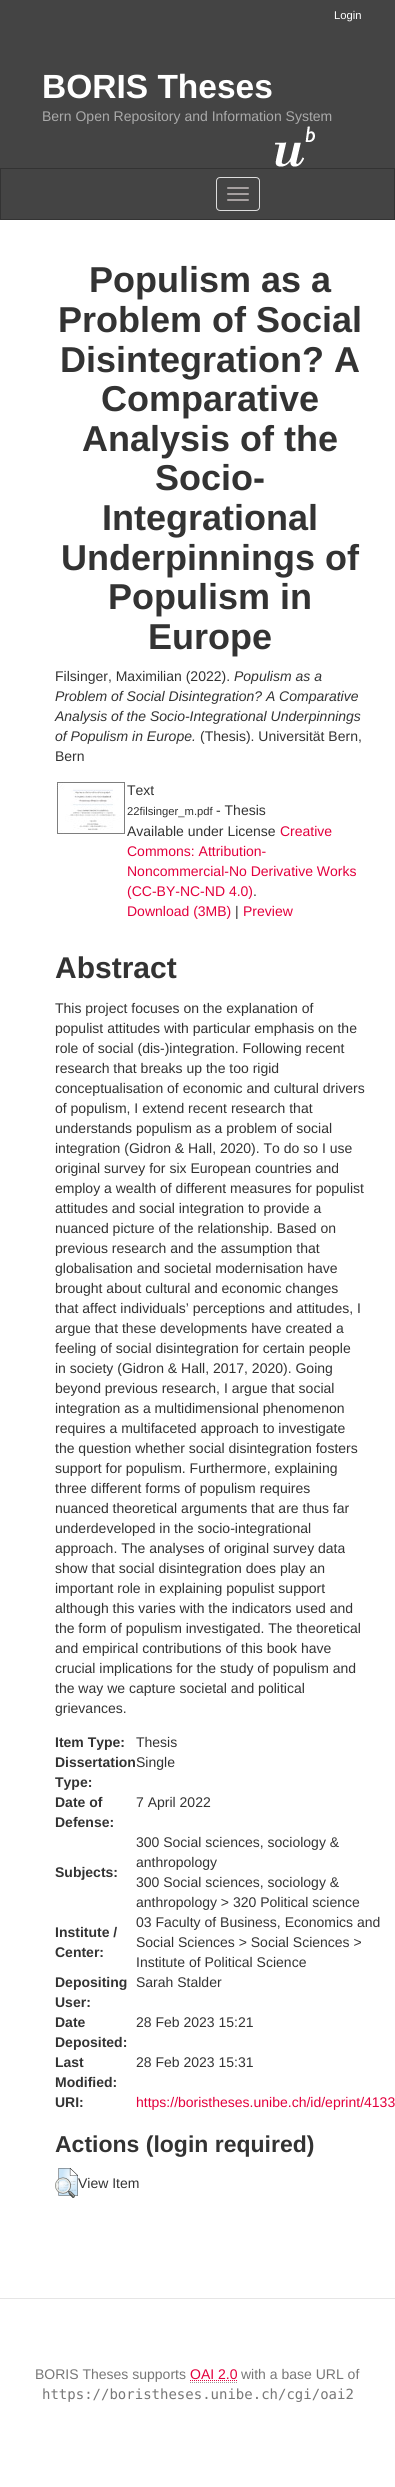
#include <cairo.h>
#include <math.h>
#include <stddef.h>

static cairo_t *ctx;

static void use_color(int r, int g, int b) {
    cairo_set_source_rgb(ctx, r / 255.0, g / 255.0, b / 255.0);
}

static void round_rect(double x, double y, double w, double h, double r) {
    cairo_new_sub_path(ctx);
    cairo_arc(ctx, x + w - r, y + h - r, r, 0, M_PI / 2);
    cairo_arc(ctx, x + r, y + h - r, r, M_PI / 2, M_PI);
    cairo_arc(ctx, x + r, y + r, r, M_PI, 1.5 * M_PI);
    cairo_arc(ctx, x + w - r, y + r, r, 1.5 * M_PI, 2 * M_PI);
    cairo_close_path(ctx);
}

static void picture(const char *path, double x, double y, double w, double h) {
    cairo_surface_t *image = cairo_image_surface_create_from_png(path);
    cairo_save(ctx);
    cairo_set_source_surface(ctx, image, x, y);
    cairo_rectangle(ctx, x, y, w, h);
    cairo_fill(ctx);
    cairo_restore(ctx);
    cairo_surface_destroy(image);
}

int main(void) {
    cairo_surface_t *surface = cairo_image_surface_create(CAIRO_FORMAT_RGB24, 395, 2487);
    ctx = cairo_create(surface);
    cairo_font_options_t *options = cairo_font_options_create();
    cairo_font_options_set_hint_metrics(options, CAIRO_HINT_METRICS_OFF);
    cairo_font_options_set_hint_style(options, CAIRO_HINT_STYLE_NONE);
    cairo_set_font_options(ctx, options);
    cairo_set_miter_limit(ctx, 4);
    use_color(255, 255, 255);
    cairo_paint(ctx);
    use_color(68, 68, 68);
    cairo_rectangle(ctx, 0, 0, 395, 168);
    cairo_fill(ctx);
    cairo_select_font_face(ctx, "Liberation Sans", CAIRO_FONT_SLANT_NORMAL, CAIRO_FONT_WEIGHT_NORMAL);
    cairo_set_font_size(ctx, 11.25);
    use_color(255, 255, 255);
    cairo_move_to(ctx, 334, 19);
    cairo_show_text(ctx, "Login");
    cairo_select_font_face(ctx, "Liberation Sans", CAIRO_FONT_SLANT_NORMAL, CAIRO_FONT_WEIGHT_BOLD);
    cairo_set_font_size(ctx, 33.5);
    cairo_move_to(ctx, 42, 98);
    cairo_show_text(ctx, "BORIS Theses");
    cairo_select_font_face(ctx, "Liberation Sans", CAIRO_FONT_SLANT_NORMAL, CAIRO_FONT_WEIGHT_NORMAL);
    cairo_set_font_size(ctx, 14);
    use_color(170, 170, 170);
    cairo_move_to(ctx, 42, 121);
    cairo_show_text(ctx, "Bern Open Repository and Information System");
    picture("img1.png", 275, 126, 40, 41);
    use_color(68, 68, 68);
    cairo_rectangle(ctx, 0.5, 168.5, 394, 51);
    cairo_fill_preserve(ctx);
    use_color(51, 51, 51);
    cairo_set_line_width(ctx, 1);
    cairo_stroke(ctx);
    round_rect(216.5, 177.5, 43, 33, 3.5);
    use_color(221, 221, 221);
    cairo_stroke(ctx);
    use_color(166, 160, 160);
    round_rect(227, 187, 22, 2, 1);
    cairo_fill(ctx);
    round_rect(227, 193, 22, 2, 1);
    cairo_fill(ctx);
    round_rect(227, 199, 22, 2, 1);
    cairo_fill(ctx);
    cairo_select_font_face(ctx, "Liberation Sans", CAIRO_FONT_SLANT_NORMAL, CAIRO_FONT_WEIGHT_BOLD);
    cairo_set_font_size(ctx, 36);
    use_color(51, 51, 51);
    cairo_move_to(ctx, 89, 292);
    cairo_show_text(ctx, "Populism as a");
    cairo_move_to(ctx, 58, 332);
    cairo_show_text(ctx, "Problem of Social");
    cairo_move_to(ctx, 60, 372);
    cairo_show_text(ctx, "Disintegration? A");
    cairo_move_to(ctx, 101, 411);
    cairo_show_text(ctx, "Comparative");
    cairo_move_to(ctx, 82, 451);
    cairo_show_text(ctx, "Analysis of the");
    cairo_move_to(ctx, 155, 490);
    cairo_show_text(ctx, "Socio-");
    cairo_move_to(ctx, 102, 530);
    cairo_show_text(ctx, "Integrational");
    cairo_move_to(ctx, 61, 570);
    cairo_show_text(ctx, "Underpinnings of");
    cairo_move_to(ctx, 108, 609);
    cairo_show_text(ctx, "Populism in");
    cairo_move_to(ctx, 148, 649);
    cairo_show_text(ctx, "Europe");
    cairo_select_font_face(ctx, "Liberation Sans", CAIRO_FONT_SLANT_NORMAL, CAIRO_FONT_WEIGHT_NORMAL);
    cairo_set_font_size(ctx, 14);
    cairo_move_to(ctx, 55, 681);
    cairo_show_text(ctx, "Filsinger, Maximilian (2022).");
    cairo_select_font_face(ctx, "Liberation Sans", CAIRO_FONT_SLANT_ITALIC, CAIRO_FONT_WEIGHT_NORMAL);
    cairo_move_to(ctx, 234, 681);
    cairo_show_text(ctx, "Populism as a");
    cairo_move_to(ctx, 55, 701);
    cairo_show_text(ctx, "Problem of Social Disintegration? A Comparative");
    cairo_move_to(ctx, 55, 721);
    cairo_show_text(ctx, "Analysis of the Socio-Integrational Underpinnings");
    cairo_move_to(ctx, 55, 741);
    cairo_show_text(ctx, "of Populism in Europe.");
    cairo_select_font_face(ctx, "Liberation Sans", CAIRO_FONT_SLANT_NORMAL, CAIRO_FONT_WEIGHT_NORMAL);
    cairo_move_to(ctx, 200, 741);
    cairo_show_text(ctx, "(Thesis). Universität Bern,");
    cairo_move_to(ctx, 55, 761);
    cairo_show_text(ctx, "Bern");
    picture("img2.png", 57, 782, 68, 52);
    cairo_move_to(ctx, 127, 795);
    cairo_show_text(ctx, "Text");
    cairo_set_font_size(ctx, 11.25);
    cairo_move_to(ctx, 127, 815);
    cairo_show_text(ctx, "22filsinger_m.pdf");
    cairo_set_font_size(ctx, 14);
    cairo_move_to(ctx, 216, 815);
    cairo_show_text(ctx, "- Thesis");
    cairo_move_to(ctx, 127, 836);
    cairo_show_text(ctx, "Available under License");
    use_color(227, 0, 61);
    cairo_move_to(ctx, 280, 836);
    cairo_show_text(ctx, "Creative");
    cairo_move_to(ctx, 127, 856);
    cairo_show_text(ctx, "Commons: Attribution-");
    cairo_move_to(ctx, 127, 876);
    cairo_show_text(ctx, "Noncommercial-No Derivative Works");
    cairo_move_to(ctx, 127, 896);
    cairo_show_text(ctx, "(CC-BY-NC-ND 4.0)");
    use_color(51, 51, 51);
    cairo_move_to(ctx, 253, 896);
    cairo_show_text(ctx, ".");
    use_color(227, 0, 61);
    cairo_move_to(ctx, 127, 916);
    cairo_show_text(ctx, "Download (3MB)");
    use_color(51, 51, 51);
    cairo_move_to(ctx, 235, 916);
    cairo_show_text(ctx, "|");
    use_color(227, 0, 61);
    cairo_move_to(ctx, 243, 916);
    cairo_show_text(ctx, "Preview");
    cairo_select_font_face(ctx, "Liberation Sans", CAIRO_FONT_SLANT_NORMAL, CAIRO_FONT_WEIGHT_BOLD);
    cairo_set_font_size(ctx, 30);
    use_color(51, 51, 51);
    cairo_move_to(ctx, 55, 978);
    cairo_show_text(ctx, "Abstract");
    cairo_select_font_face(ctx, "Liberation Sans", CAIRO_FONT_SLANT_NORMAL, CAIRO_FONT_WEIGHT_NORMAL);
    cairo_set_font_size(ctx, 14);
    cairo_move_to(ctx, 55, 1013);
    cairo_show_text(ctx, "This project focuses on the explanation of");
    cairo_move_to(ctx, 55, 1033);
    cairo_show_text(ctx, "populist attitudes with particular emphasis on the");
    cairo_move_to(ctx, 55, 1053);
    cairo_show_text(ctx, "role of social (dis-)integration. Following recent");
    cairo_move_to(ctx, 55, 1073);
    cairo_show_text(ctx, "research that breaks up the too rigid");
    cairo_move_to(ctx, 55, 1093);
    cairo_show_text(ctx, "conceptualisation of economic and cultural drivers");
    cairo_move_to(ctx, 55, 1113);
    cairo_show_text(ctx, "of populism, I extend recent research that");
    cairo_move_to(ctx, 55, 1133);
    cairo_show_text(ctx, "understands populism as a problem of social");
    cairo_move_to(ctx, 55, 1153);
    cairo_show_text(ctx, "integration (Gidron & Hall, 2020). To do so I use");
    cairo_move_to(ctx, 55, 1173);
    cairo_show_text(ctx, "original survey for six European countries and");
    cairo_move_to(ctx, 55, 1193);
    cairo_show_text(ctx, "employ a wealth of different measures for populist");
    cairo_move_to(ctx, 55, 1213);
    cairo_show_text(ctx, "attitudes and social integration to provide a");
    cairo_move_to(ctx, 55, 1233);
    cairo_show_text(ctx, "nuanced picture of the relationship. Based on");
    cairo_move_to(ctx, 55, 1253);
    cairo_show_text(ctx, "previous research and the assumption that");
    cairo_move_to(ctx, 55, 1273);
    cairo_show_text(ctx, "globalisation and societal modernisation have");
    cairo_move_to(ctx, 55, 1293);
    cairo_show_text(ctx, "brought about cultural and economic changes");
    cairo_move_to(ctx, 55, 1313);
    cairo_show_text(ctx, "that affect individuals’ perceptions and attitudes, I");
    cairo_move_to(ctx, 55, 1333);
    cairo_show_text(ctx, "argue that these developments have created a");
    cairo_move_to(ctx, 55, 1353);
    cairo_show_text(ctx, "feeling of social disintegration for certain people");
    cairo_move_to(ctx, 55, 1373);
    cairo_show_text(ctx, "in society (Gidron & Hall, 2017, 2020). Going");
    cairo_move_to(ctx, 55, 1393);
    cairo_show_text(ctx, "beyond previous research, I argue that social");
    cairo_move_to(ctx, 55, 1413);
    cairo_show_text(ctx, "integration as a multidimensional phenomenon");
    cairo_move_to(ctx, 55, 1433);
    cairo_show_text(ctx, "requires a multifaceted approach to investigate");
    cairo_move_to(ctx, 55, 1453);
    cairo_show_text(ctx, "the question whether social disintegration fosters");
    cairo_move_to(ctx, 55, 1473);
    cairo_show_text(ctx, "support for populism. Furthermore, explaining");
    cairo_move_to(ctx, 55, 1493);
    cairo_show_text(ctx, "three different forms of populism requires");
    cairo_move_to(ctx, 55, 1513);
    cairo_show_text(ctx, "nuanced theoretical arguments that are thus far");
    cairo_move_to(ctx, 55, 1533);
    cairo_show_text(ctx, "underdeveloped in the socio-integrational");
    cairo_move_to(ctx, 55, 1553);
    cairo_show_text(ctx, "approach. The analyses of original survey data");
    cairo_move_to(ctx, 55, 1573);
    cairo_show_text(ctx, "show that social disintegration does play an");
    cairo_move_to(ctx, 55, 1593);
    cairo_show_text(ctx, "important role in explaining populist support");
    cairo_move_to(ctx, 55, 1613);
    cairo_show_text(ctx, "although this varies with the indicators used and");
    cairo_move_to(ctx, 55, 1633);
    cairo_show_text(ctx, "the form of populism investigated. The theoretical");
    cairo_move_to(ctx, 55, 1653);
    cairo_show_text(ctx, "and empirical contributions of this book have");
    cairo_move_to(ctx, 55, 1673);
    cairo_show_text(ctx, "crucial implications for the study of populism and");
    cairo_move_to(ctx, 55, 1693);
    cairo_show_text(ctx, "the way we capture societal and political");
    cairo_move_to(ctx, 55, 1713);
    cairo_show_text(ctx, "grievances.");
    cairo_select_font_face(ctx, "Liberation Sans", CAIRO_FONT_SLANT_NORMAL, CAIRO_FONT_WEIGHT_BOLD);
    cairo_move_to(ctx, 55, 1747);
    cairo_show_text(ctx, "Item Type:");
    cairo_select_font_face(ctx, "Liberation Sans", CAIRO_FONT_SLANT_NORMAL, CAIRO_FONT_WEIGHT_NORMAL);
    cairo_move_to(ctx, 136, 1747);
    cairo_show_text(ctx, "Thesis");
    cairo_select_font_face(ctx, "Liberation Sans", CAIRO_FONT_SLANT_NORMAL, CAIRO_FONT_WEIGHT_BOLD);
    cairo_move_to(ctx, 55, 1767);
    cairo_show_text(ctx, "Dissertation");
    cairo_move_to(ctx, 55, 1787);
    cairo_show_text(ctx, "Type:");
    cairo_select_font_face(ctx, "Liberation Sans", CAIRO_FONT_SLANT_NORMAL, CAIRO_FONT_WEIGHT_NORMAL);
    cairo_move_to(ctx, 136, 1767);
    cairo_show_text(ctx, "Single");
    cairo_select_font_face(ctx, "Liberation Sans", CAIRO_FONT_SLANT_NORMAL, CAIRO_FONT_WEIGHT_BOLD);
    cairo_move_to(ctx, 55, 1807);
    cairo_show_text(ctx, "Date of");
    cairo_move_to(ctx, 55, 1827);
    cairo_show_text(ctx, "Defense:");
    cairo_select_font_face(ctx, "Liberation Sans", CAIRO_FONT_SLANT_NORMAL, CAIRO_FONT_WEIGHT_NORMAL);
    cairo_move_to(ctx, 136, 1807);
    cairo_show_text(ctx, "7 April 2022");
    cairo_select_font_face(ctx, "Liberation Sans", CAIRO_FONT_SLANT_NORMAL, CAIRO_FONT_WEIGHT_BOLD);
    cairo_move_to(ctx, 55, 1877);
    cairo_show_text(ctx, "Subjects:");
    cairo_select_font_face(ctx, "Liberation Sans", CAIRO_FONT_SLANT_NORMAL, CAIRO_FONT_WEIGHT_NORMAL);
    cairo_move_to(ctx, 136, 1847);
    cairo_show_text(ctx, "300 Social sciences, sociology &");
    cairo_move_to(ctx, 136, 1867);
    cairo_show_text(ctx, "anthropology");
    cairo_move_to(ctx, 136, 1887);
    cairo_show_text(ctx, "300 Social sciences, sociology &");
    cairo_move_to(ctx, 136, 1907);
    cairo_show_text(ctx, "anthropology > 320 Political science");
    cairo_select_font_face(ctx, "Liberation Sans", CAIRO_FONT_SLANT_NORMAL, CAIRO_FONT_WEIGHT_BOLD);
    cairo_move_to(ctx, 55, 1937);
    cairo_show_text(ctx, "Institute /");
    cairo_move_to(ctx, 55, 1957);
    cairo_show_text(ctx, "Center:");
    cairo_select_font_face(ctx, "Liberation Sans", CAIRO_FONT_SLANT_NORMAL, CAIRO_FONT_WEIGHT_NORMAL);
    cairo_move_to(ctx, 136, 1927);
    cairo_show_text(ctx, "03 Faculty of Business, Economics and");
    cairo_move_to(ctx, 136, 1947);
    cairo_show_text(ctx, "Social Sciences > Social Sciences >");
    cairo_move_to(ctx, 136, 1967);
    cairo_show_text(ctx, "Institute of Political Science");
    cairo_select_font_face(ctx, "Liberation Sans", CAIRO_FONT_SLANT_NORMAL, CAIRO_FONT_WEIGHT_BOLD);
    cairo_move_to(ctx, 55, 1987);
    cairo_show_text(ctx, "Depositing");
    cairo_move_to(ctx, 55, 2007);
    cairo_show_text(ctx, "User:");
    cairo_select_font_face(ctx, "Liberation Sans", CAIRO_FONT_SLANT_NORMAL, CAIRO_FONT_WEIGHT_NORMAL);
    cairo_move_to(ctx, 136, 1987);
    cairo_show_text(ctx, "Sarah Stalder");
    cairo_select_font_face(ctx, "Liberation Sans", CAIRO_FONT_SLANT_NORMAL, CAIRO_FONT_WEIGHT_BOLD);
    cairo_move_to(ctx, 55, 2027);
    cairo_show_text(ctx, "Date");
    cairo_move_to(ctx, 55, 2047);
    cairo_show_text(ctx, "Deposited:");
    cairo_select_font_face(ctx, "Liberation Sans", CAIRO_FONT_SLANT_NORMAL, CAIRO_FONT_WEIGHT_NORMAL);
    cairo_move_to(ctx, 136, 2027);
    cairo_show_text(ctx, "28 Feb 2023 15:21");
    cairo_select_font_face(ctx, "Liberation Sans", CAIRO_FONT_SLANT_NORMAL, CAIRO_FONT_WEIGHT_BOLD);
    cairo_move_to(ctx, 55, 2067);
    cairo_show_text(ctx, "Last");
    cairo_move_to(ctx, 55, 2087);
    cairo_show_text(ctx, "Modified:");
    cairo_select_font_face(ctx, "Liberation Sans", CAIRO_FONT_SLANT_NORMAL, CAIRO_FONT_WEIGHT_NORMAL);
    cairo_move_to(ctx, 136, 2067);
    cairo_show_text(ctx, "28 Feb 2023 15:31");
    cairo_select_font_face(ctx, "Liberation Sans", CAIRO_FONT_SLANT_NORMAL, CAIRO_FONT_WEIGHT_BOLD);
    cairo_move_to(ctx, 55, 2107);
    cairo_show_text(ctx, "URI:");
    cairo_select_font_face(ctx, "Liberation Sans", CAIRO_FONT_SLANT_NORMAL, CAIRO_FONT_WEIGHT_NORMAL);
    use_color(227, 0, 61);
    cairo_move_to(ctx, 136, 2107);
    cairo_show_text(ctx, "https://boristheses.unibe.ch/id/eprint/4133");
    cairo_select_font_face(ctx, "Liberation Sans", CAIRO_FONT_SLANT_NORMAL, CAIRO_FONT_WEIGHT_BOLD);
    cairo_set_font_size(ctx, 23);
    use_color(51, 51, 51);
    cairo_move_to(ctx, 55, 2152);
    cairo_show_text(ctx, "Actions (login required)");
    picture("img3.png", 55, 2168, 23, 30);
    cairo_select_font_face(ctx, "Liberation Sans", CAIRO_FONT_SLANT_NORMAL, CAIRO_FONT_WEIGHT_NORMAL);
    cairo_set_font_size(ctx, 14);
    cairo_move_to(ctx, 78, 2188);
    cairo_show_text(ctx, "View Item");
    use_color(229, 229, 229);
    cairo_rectangle(ctx, 0, 2298, 395, 1);
    cairo_fill(ctx);
    use_color(119, 119, 119);
    cairo_move_to(ctx, 35, 2379);
    cairo_show_text(ctx, "BORIS Theses supports");
    use_color(227, 0, 61);
    cairo_move_to(ctx, 190, 2379);
    cairo_show_text(ctx, "OAI 2.0");
    cairo_new_path(ctx);
    cairo_move_to(ctx, 190, 2382.5);
    cairo_line_to(ctx, 238, 2382.5);
    use_color(153, 153, 153);
    cairo_set_dash(ctx, (double[]){1, 1}, 2, 0);
    cairo_stroke(ctx);
    cairo_new_path(ctx);
    cairo_move_to(ctx, 190, 2380.5);
    cairo_line_to(ctx, 237.5, 2380.5);
    use_color(227, 0, 61);
    cairo_stroke(ctx);
    use_color(119, 119, 119);
    cairo_move_to(ctx, 241, 2379);
    cairo_show_text(ctx, "with a base URL of");
    cairo_select_font_face(ctx, "DejaVu Sans Mono", CAIRO_FONT_SLANT_NORMAL, CAIRO_FONT_WEIGHT_NORMAL);
    cairo_move_to(ctx, 42, 2399);
    cairo_show_text(ctx, "https://boristheses.unibe.ch/cgi/oai2");
    cairo_surface_write_to_png(surface, "result.png");
    cairo_font_options_destroy(options);
    cairo_destroy(ctx);
    cairo_surface_destroy(surface);
    return 0;
}
